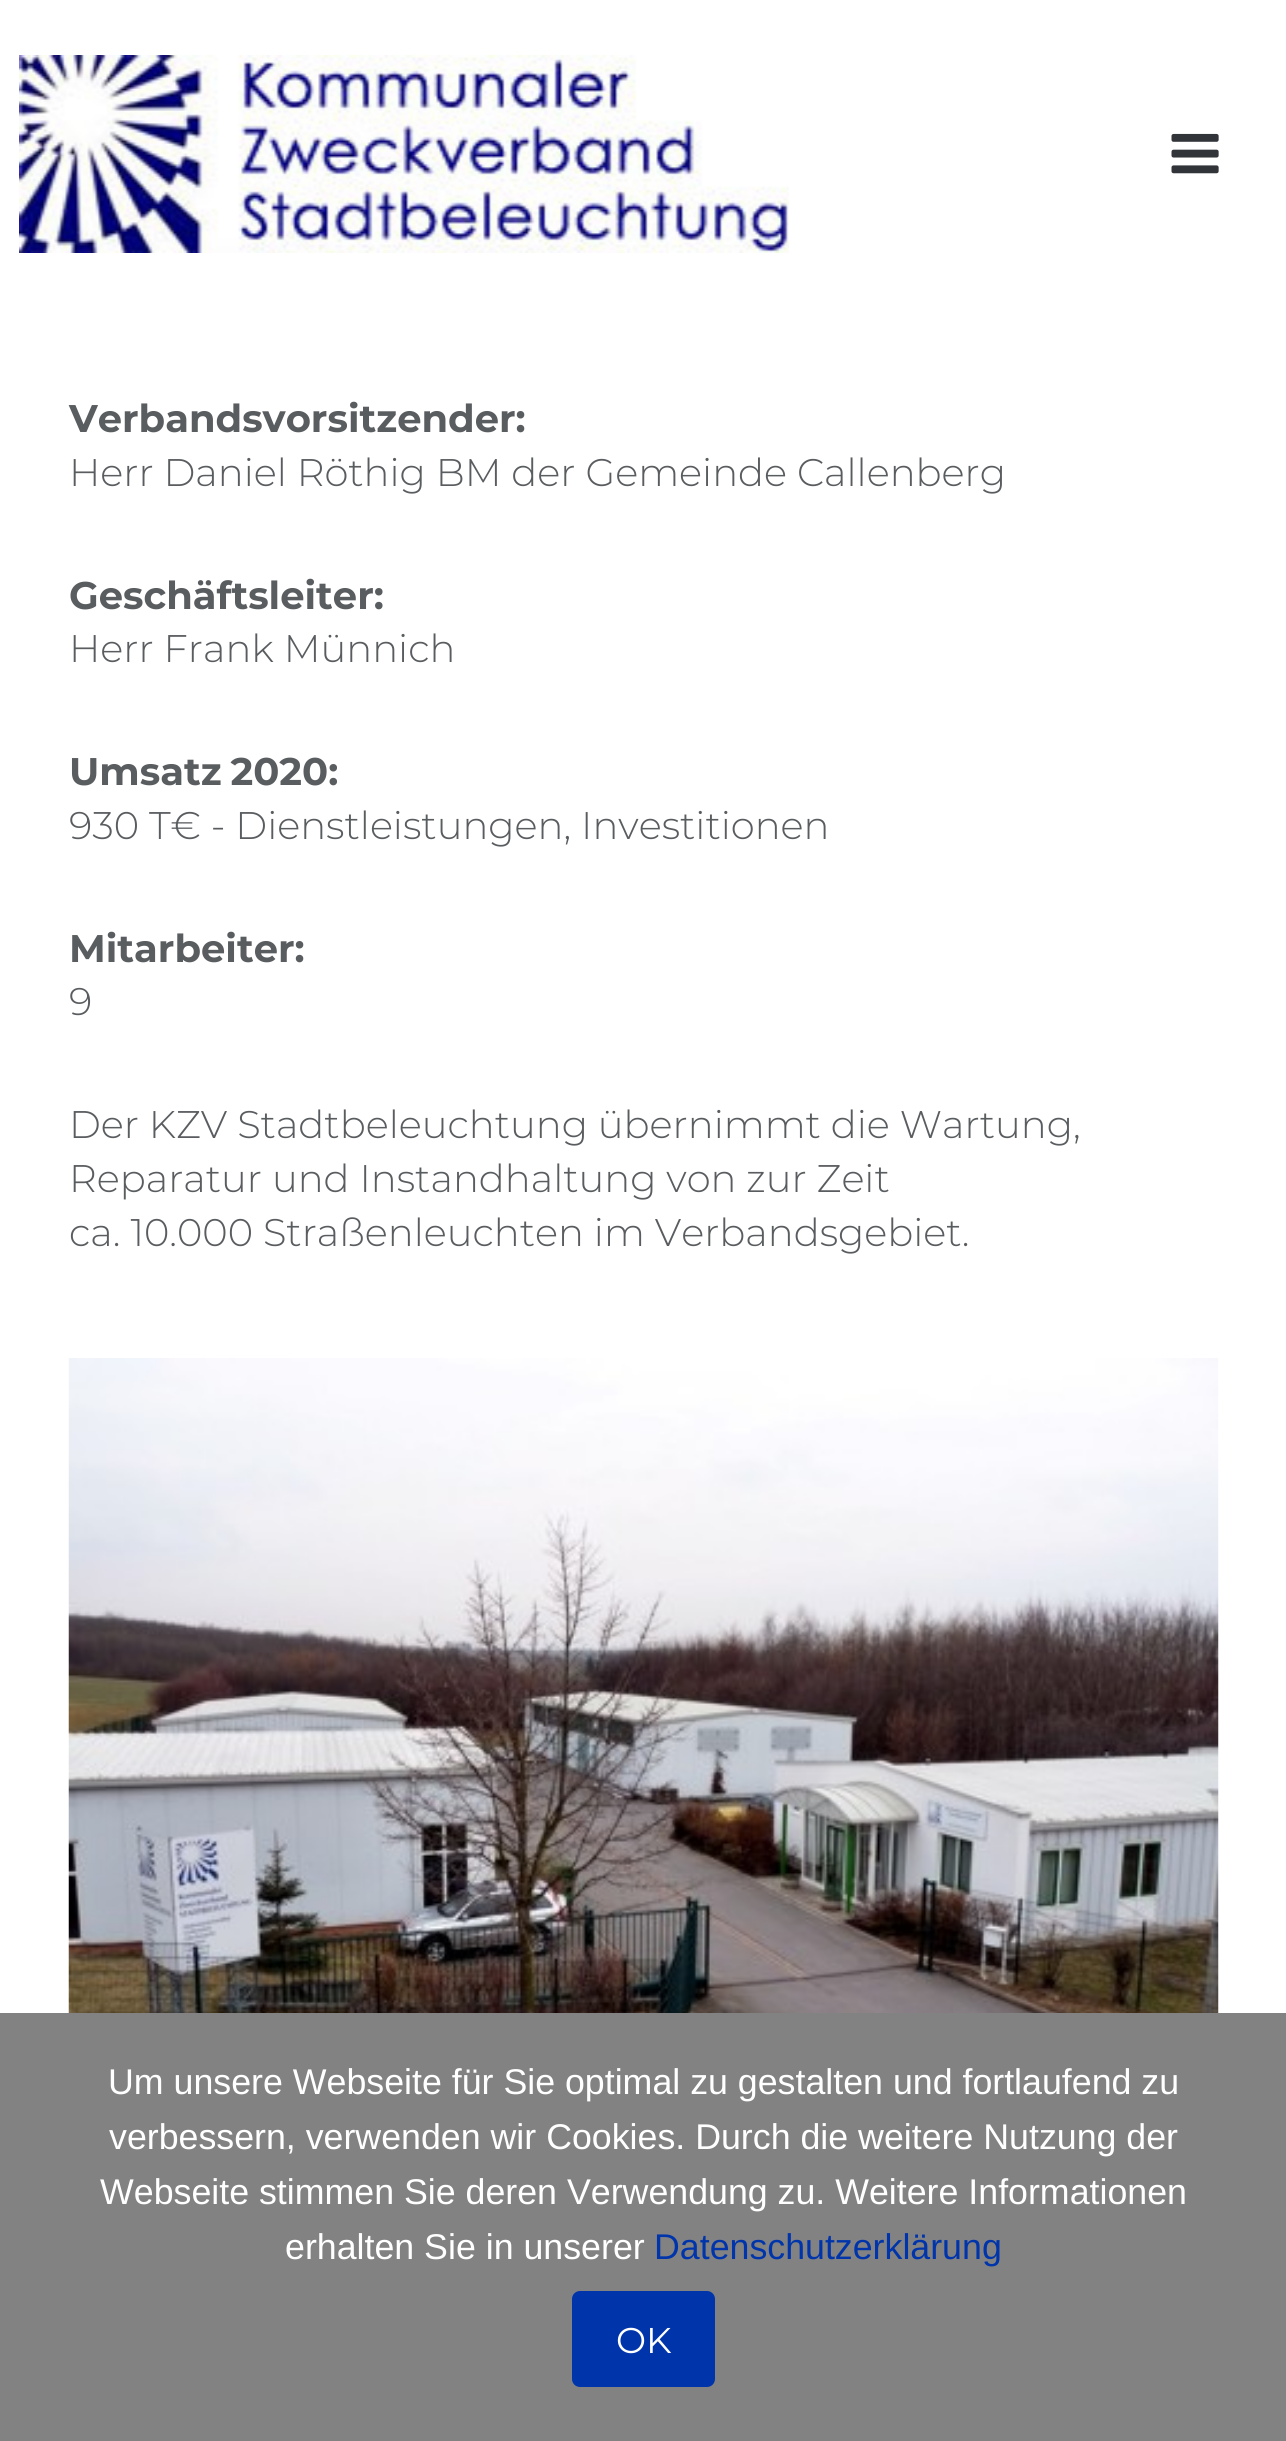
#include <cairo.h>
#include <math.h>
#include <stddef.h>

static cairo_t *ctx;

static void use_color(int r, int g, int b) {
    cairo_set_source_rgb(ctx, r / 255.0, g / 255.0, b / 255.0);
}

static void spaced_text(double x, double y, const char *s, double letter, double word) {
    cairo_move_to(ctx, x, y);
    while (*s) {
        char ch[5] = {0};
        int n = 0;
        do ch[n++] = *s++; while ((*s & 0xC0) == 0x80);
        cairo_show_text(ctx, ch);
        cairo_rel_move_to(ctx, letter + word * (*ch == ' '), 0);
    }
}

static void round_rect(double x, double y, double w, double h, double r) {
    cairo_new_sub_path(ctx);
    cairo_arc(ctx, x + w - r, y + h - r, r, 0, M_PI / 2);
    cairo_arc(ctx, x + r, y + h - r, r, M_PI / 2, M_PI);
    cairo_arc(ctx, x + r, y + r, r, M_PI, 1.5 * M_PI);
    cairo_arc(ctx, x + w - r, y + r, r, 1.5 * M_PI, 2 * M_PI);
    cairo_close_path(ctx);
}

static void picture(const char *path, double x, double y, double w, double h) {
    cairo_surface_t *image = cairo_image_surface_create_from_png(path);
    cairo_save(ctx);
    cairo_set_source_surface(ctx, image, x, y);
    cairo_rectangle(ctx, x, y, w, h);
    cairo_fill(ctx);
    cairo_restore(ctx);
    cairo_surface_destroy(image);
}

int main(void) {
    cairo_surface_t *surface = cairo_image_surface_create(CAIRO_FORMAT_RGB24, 1286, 2441);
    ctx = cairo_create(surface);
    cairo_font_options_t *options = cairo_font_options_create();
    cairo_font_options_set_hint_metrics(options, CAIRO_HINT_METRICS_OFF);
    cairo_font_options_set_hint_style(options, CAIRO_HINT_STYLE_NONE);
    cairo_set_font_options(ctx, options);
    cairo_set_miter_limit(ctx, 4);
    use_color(255, 255, 255);
    cairo_paint(ctx);
    picture("img1.png", 19, 55, 770, 198);
    picture("img2.png", 1171, 133, 48, 41);
    cairo_select_font_face(ctx, "Montserrat", CAIRO_FONT_SLANT_NORMAL, CAIRO_FONT_WEIGHT_BOLD);
    cairo_set_font_size(ctx, 38.5);
    use_color(90, 93, 96);
    cairo_move_to(ctx, 69, 432);
    cairo_show_text(ctx, "Verbandsvorsitzender:");
    cairo_select_font_face(ctx, "Montserrat Light", CAIRO_FONT_SLANT_NORMAL, CAIRO_FONT_WEIGHT_NORMAL);
    cairo_move_to(ctx, 69, 486);
    cairo_show_text(ctx, "Herr Daniel Röthig BM der Gemeinde Callenberg");
    cairo_select_font_face(ctx, "Montserrat", CAIRO_FONT_SLANT_NORMAL, CAIRO_FONT_WEIGHT_BOLD);
    cairo_move_to(ctx, 69, 609);
    cairo_show_text(ctx, "Geschäftsleiter:");
    cairo_select_font_face(ctx, "Montserrat Light", CAIRO_FONT_SLANT_NORMAL, CAIRO_FONT_WEIGHT_NORMAL);
    cairo_move_to(ctx, 69, 662);
    cairo_show_text(ctx, "Herr Frank Münnich");
    cairo_select_font_face(ctx, "Montserrat", CAIRO_FONT_SLANT_NORMAL, CAIRO_FONT_WEIGHT_BOLD);
    spaced_text(69, 785, "Umsatz 2020:", 0, -2);
    cairo_select_font_face(ctx, "Montserrat Light", CAIRO_FONT_SLANT_NORMAL, CAIRO_FONT_WEIGHT_NORMAL);
    cairo_move_to(ctx, 69, 839);
    cairo_show_text(ctx, "930 T€ - Dienstleistungen, Investitionen");
    cairo_select_font_face(ctx, "Montserrat", CAIRO_FONT_SLANT_NORMAL, CAIRO_FONT_WEIGHT_BOLD);
    cairo_move_to(ctx, 69, 962);
    cairo_show_text(ctx, "Mitarbeiter:");
    cairo_select_font_face(ctx, "Montserrat Light", CAIRO_FONT_SLANT_NORMAL, CAIRO_FONT_WEIGHT_NORMAL);
    cairo_move_to(ctx, 69, 1015);
    cairo_show_text(ctx, "9");
    cairo_move_to(ctx, 69, 1138);
    cairo_show_text(ctx, "Der KZV Stadtbeleuchtung übernimmt die Wartung,");
    cairo_move_to(ctx, 69, 1192);
    cairo_show_text(ctx, "Reparatur und Instandhaltung von zur Zeit");
    cairo_move_to(ctx, 69, 1246);
    cairo_show_text(ctx, "ca. 10.000 Straßenleuchten im Verbandsgebiet.");
    picture("img3.png", 68, 1358, 1151, 655);
    use_color(130, 130, 130);
    cairo_rectangle(ctx, 0, 2013, 1286, 428);
    cairo_fill(ctx);
    cairo_select_font_face(ctx, "Liberation Sans", CAIRO_FONT_SLANT_NORMAL, CAIRO_FONT_WEIGHT_NORMAL);
    cairo_set_font_size(ctx, 35.75);
    use_color(255, 255, 255);
    cairo_move_to(ctx, 108, 2094);
    cairo_show_text(ctx, "Um unsere Webseite für Sie optimal zu gestalten und fortlaufend zu");
    cairo_move_to(ctx, 109, 2149);
    cairo_show_text(ctx, "verbessern, verwenden wir Cookies. Durch die weitere Nutzung der");
    cairo_move_to(ctx, 100, 2204);
    cairo_show_text(ctx, "Webseite stimmen Sie deren Verwendung zu. Weitere Informationen");
    cairo_move_to(ctx, 285, 2259);
    cairo_show_text(ctx, "erhalten Sie in unserer");
    use_color(0, 52, 170);
    cairo_move_to(ctx, 654, 2259);
    cairo_show_text(ctx, "Datenschutzerklärung");
    round_rect(572, 2291, 143, 96, 8);
    cairo_fill(ctx);
    cairo_select_font_face(ctx, "Montserrat", CAIRO_FONT_SLANT_NORMAL, CAIRO_FONT_WEIGHT_NORMAL);
    use_color(255, 255, 255);
    cairo_move_to(ctx, 616, 2353);
    cairo_show_text(ctx, "OK");
    cairo_surface_write_to_png(surface, "result.png");
    cairo_font_options_destroy(options);
    cairo_destroy(ctx);
    cairo_surface_destroy(surface);
    return 0;
}
